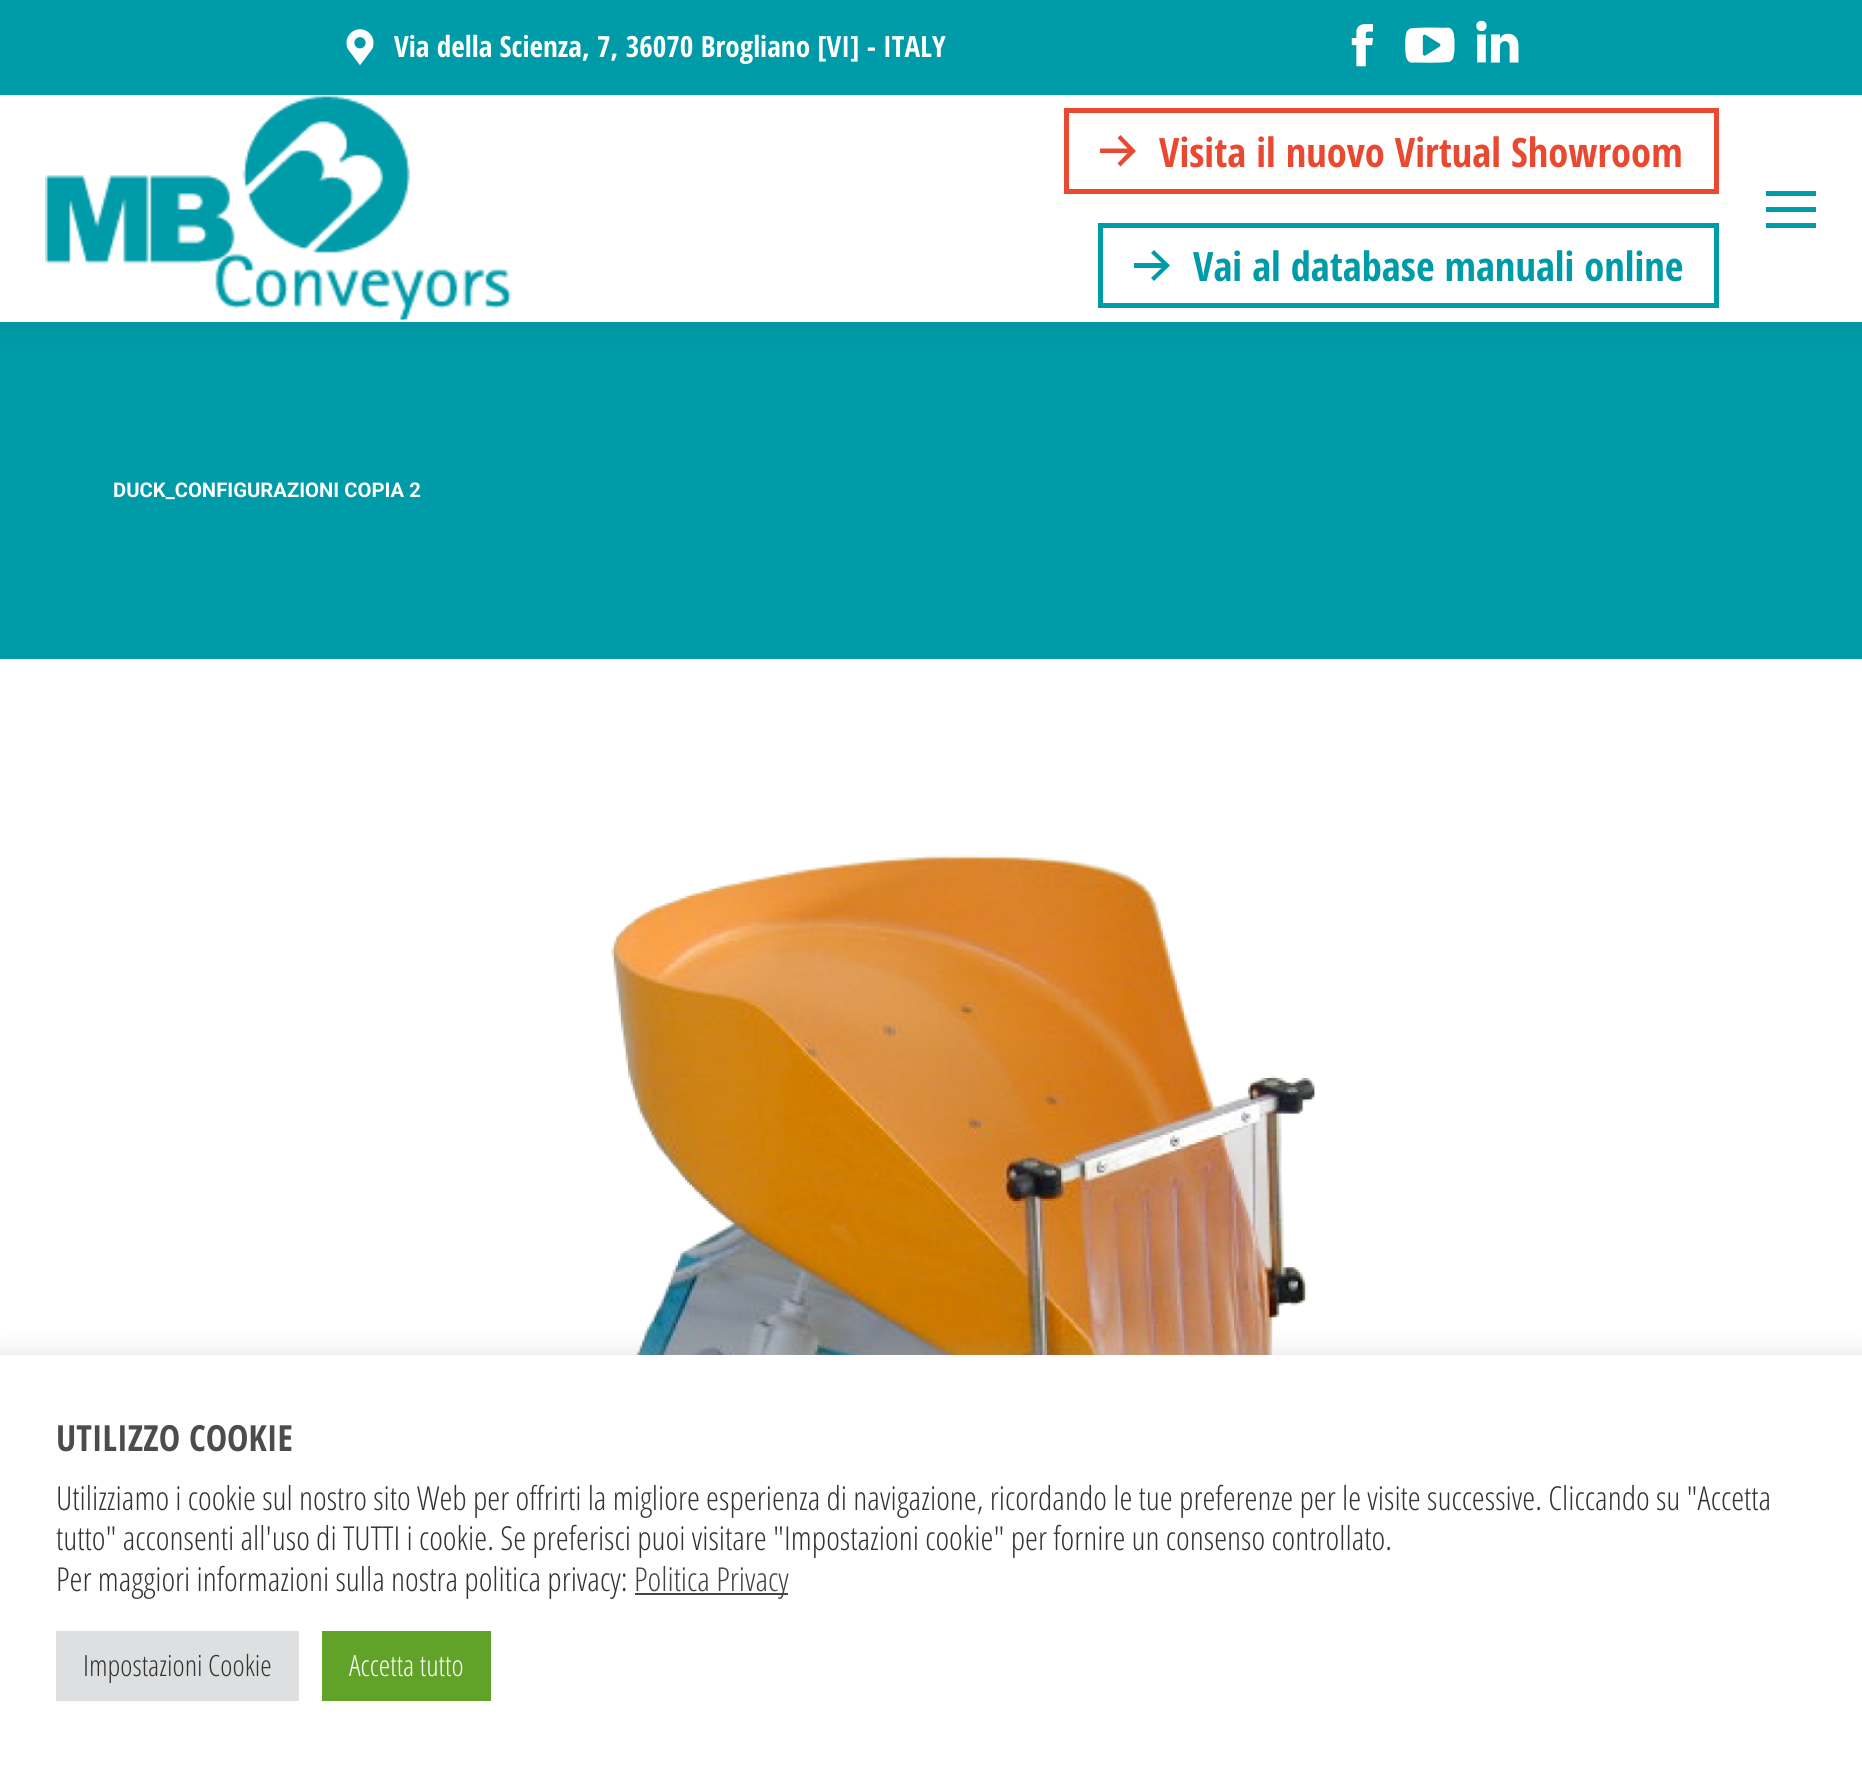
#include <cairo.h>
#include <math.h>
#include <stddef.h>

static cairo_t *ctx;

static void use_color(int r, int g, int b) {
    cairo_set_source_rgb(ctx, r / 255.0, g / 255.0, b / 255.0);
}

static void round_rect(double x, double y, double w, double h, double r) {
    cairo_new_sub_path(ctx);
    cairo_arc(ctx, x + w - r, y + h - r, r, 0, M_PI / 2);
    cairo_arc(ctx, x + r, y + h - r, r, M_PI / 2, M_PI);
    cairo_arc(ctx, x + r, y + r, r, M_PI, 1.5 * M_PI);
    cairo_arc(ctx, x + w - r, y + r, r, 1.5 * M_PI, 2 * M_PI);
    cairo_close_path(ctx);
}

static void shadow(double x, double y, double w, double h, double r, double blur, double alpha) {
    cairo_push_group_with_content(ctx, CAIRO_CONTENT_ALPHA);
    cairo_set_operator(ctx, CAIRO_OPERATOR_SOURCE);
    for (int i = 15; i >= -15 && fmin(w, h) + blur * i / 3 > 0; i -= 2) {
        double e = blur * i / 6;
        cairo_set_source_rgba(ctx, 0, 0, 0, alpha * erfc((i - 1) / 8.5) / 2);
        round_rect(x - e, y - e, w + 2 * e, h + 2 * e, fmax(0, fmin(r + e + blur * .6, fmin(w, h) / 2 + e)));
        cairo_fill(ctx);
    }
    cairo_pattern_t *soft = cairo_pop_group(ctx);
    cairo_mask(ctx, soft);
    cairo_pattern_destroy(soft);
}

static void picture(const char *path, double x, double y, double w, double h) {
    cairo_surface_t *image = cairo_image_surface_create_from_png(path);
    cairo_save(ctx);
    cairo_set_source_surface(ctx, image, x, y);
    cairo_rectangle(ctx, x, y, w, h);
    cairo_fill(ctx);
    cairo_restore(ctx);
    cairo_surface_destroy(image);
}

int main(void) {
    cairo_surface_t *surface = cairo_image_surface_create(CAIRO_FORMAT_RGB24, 1862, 1767);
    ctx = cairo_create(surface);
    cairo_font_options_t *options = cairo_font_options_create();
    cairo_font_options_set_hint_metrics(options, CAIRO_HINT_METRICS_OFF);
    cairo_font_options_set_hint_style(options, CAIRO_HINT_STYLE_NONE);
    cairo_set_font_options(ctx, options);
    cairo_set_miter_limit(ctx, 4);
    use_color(255, 255, 255);
    cairo_paint(ctx);
    use_color(0, 155, 168);
    cairo_rectangle(ctx, 0, 322, 1862, 337);
    cairo_fill(ctx);
    use_color(0, 0, 0);
    shadow(-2, -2, 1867, 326, 0, 17, 0.07);
    use_color(255, 255, 255);
    cairo_rectangle(ctx, 0, 95, 1862, 227);
    cairo_fill(ctx);
    use_color(0, 155, 168);
    cairo_rectangle(ctx, 0, 0, 1862, 95);
    cairo_fill(ctx);
    picture("img1.png", 346, 29, 28, 37);
    cairo_select_font_face(ctx, "Open Sans Condensed", CAIRO_FONT_SLANT_NORMAL, CAIRO_FONT_WEIGHT_BOLD);
    cairo_set_font_size(ctx, 29.25);
    use_color(255, 255, 255);
    cairo_move_to(ctx, 394, 57);
    cairo_show_text(ctx, "Via della Scienza, 7, 36070 Brogliano [VI] - ITALY");
    picture("img2.png", 1351, 24, 22, 43);
    picture("img3.png", 1405, 27, 50, 36);
    picture("img4.png", 1476, 20, 43, 43);
    picture("img5.png", 45, 96, 467, 225);
    cairo_rectangle(ctx, 1066.5, 110.5, 650, 81);
    use_color(232, 73, 48);
    cairo_set_line_width(ctx, 5);
    cairo_stroke(ctx);
    cairo_new_path(ctx);
    cairo_move_to(ctx, 1120.5, 135);
    cairo_line_to(ctx, 1117.5, 138);
    cairo_line_to(ctx, 1127.5, 148.5);
    cairo_line_to(ctx, 1100, 148.5);
    cairo_line_to(ctx, 1100, 153);
    cairo_line_to(ctx, 1127.5, 153);
    cairo_line_to(ctx, 1117.5, 163.5);
    cairo_line_to(ctx, 1120.5, 166.5);
    cairo_line_to(ctx, 1136, 151);
    cairo_close_path(ctx);
    cairo_fill(ctx);
    cairo_set_font_size(ctx, 40.5);
    cairo_move_to(ctx, 1159, 167);
    cairo_show_text(ctx, "Visita il nuovo Virtual Showroom");
    cairo_rectangle(ctx, 1100.5, 225.5, 616, 80);
    use_color(0, 155, 168);
    cairo_stroke(ctx);
    cairo_new_path(ctx);
    cairo_move_to(ctx, 1154, 250);
    cairo_line_to(ctx, 1151, 253);
    cairo_line_to(ctx, 1161.5, 263);
    cairo_line_to(ctx, 1134, 263);
    cairo_line_to(ctx, 1134, 268);
    cairo_line_to(ctx, 1161.5, 268);
    cairo_line_to(ctx, 1151, 278);
    cairo_line_to(ctx, 1154, 281);
    cairo_line_to(ctx, 1170, 265.5);
    cairo_close_path(ctx);
    cairo_fill(ctx);
    cairo_move_to(ctx, 1193, 281);
    cairo_show_text(ctx, "Vai al database manuali online");
    cairo_rectangle(ctx, 1766, 191, 50, 5);
    cairo_fill(ctx);
    cairo_rectangle(ctx, 1766, 207, 50, 5);
    cairo_fill(ctx);
    cairo_rectangle(ctx, 1766, 223, 50, 5);
    cairo_fill(ctx);
    cairo_select_font_face(ctx, "Roboto", CAIRO_FONT_SLANT_NORMAL, CAIRO_FONT_WEIGHT_BOLD);
    cairo_set_font_size(ctx, 20.25);
    use_color(255, 255, 255);
    cairo_move_to(ctx, 113, 497);
    cairo_show_text(ctx, "DUCK_CONFIGURAZIONI COPIA 2");
    picture("img6.png", 610, 855, 705, 500);
    use_color(172, 171, 171);
    shadow(0, 1352, 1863, 414, 0, 11, 0.3);
    use_color(255, 255, 255);
    cairo_rectangle(ctx, 0, 1355, 1862, 412);
    cairo_fill(ctx);
    cairo_select_font_face(ctx, "Open Sans Condensed", CAIRO_FONT_SLANT_NORMAL, CAIRO_FONT_WEIGHT_BOLD);
    cairo_set_font_size(ctx, 36);
    use_color(76, 76, 76);
    cairo_move_to(ctx, 56, 1451);
    cairo_show_text(ctx, "UTILIZZO COOKIE");
    cairo_select_font_face(ctx, "Open Sans Condensed Light", CAIRO_FONT_SLANT_NORMAL, CAIRO_FONT_WEIGHT_NORMAL);
    cairo_set_font_size(ctx, 33);
    use_color(51, 51, 51);
    cairo_move_to(ctx, 56, 1510);
    cairo_show_text(ctx, "Utilizziamo i cookie sul nostro sito Web per offrirti la migliore esperienza di navigazione, ricordando le tue preferenze per le visite successive. Cliccando su \"Accetta");
    cairo_move_to(ctx, 56, 1550);
    cairo_show_text(ctx, "tutto\" acconsenti all'uso di TUTTI i cookie. Se preferisci puoi visitare \"Impostazioni cookie\" per fornire un consenso controllato.");
    cairo_move_to(ctx, 56, 1591);
    cairo_show_text(ctx, "Per maggiori informazioni sulla nostra politica privacy:");
    use_color(68, 68, 68);
    cairo_rectangle(ctx, 635, 1593, 153, 2);
    cairo_fill(ctx);
    cairo_move_to(ctx, 634, 1591);
    cairo_show_text(ctx, "Politica Privacy");
    use_color(222, 223, 224);
    cairo_rectangle(ctx, 56, 1631, 243, 70);
    cairo_fill(ctx);
    cairo_set_font_size(ctx, 29.25);
    use_color(51, 51, 51);
    cairo_move_to(ctx, 83, 1676);
    cairo_show_text(ctx, "Impostazioni Cookie");
    use_color(97, 162, 41);
    cairo_rectangle(ctx, 322, 1631, 169, 70);
    cairo_fill(ctx);
    use_color(255, 255, 255);
    cairo_move_to(ctx, 349, 1676);
    cairo_show_text(ctx, "Accetta tutto");
    cairo_surface_write_to_png(surface, "result.png");
    cairo_font_options_destroy(options);
    cairo_destroy(ctx);
    cairo_surface_destroy(surface);
    return 0;
}
